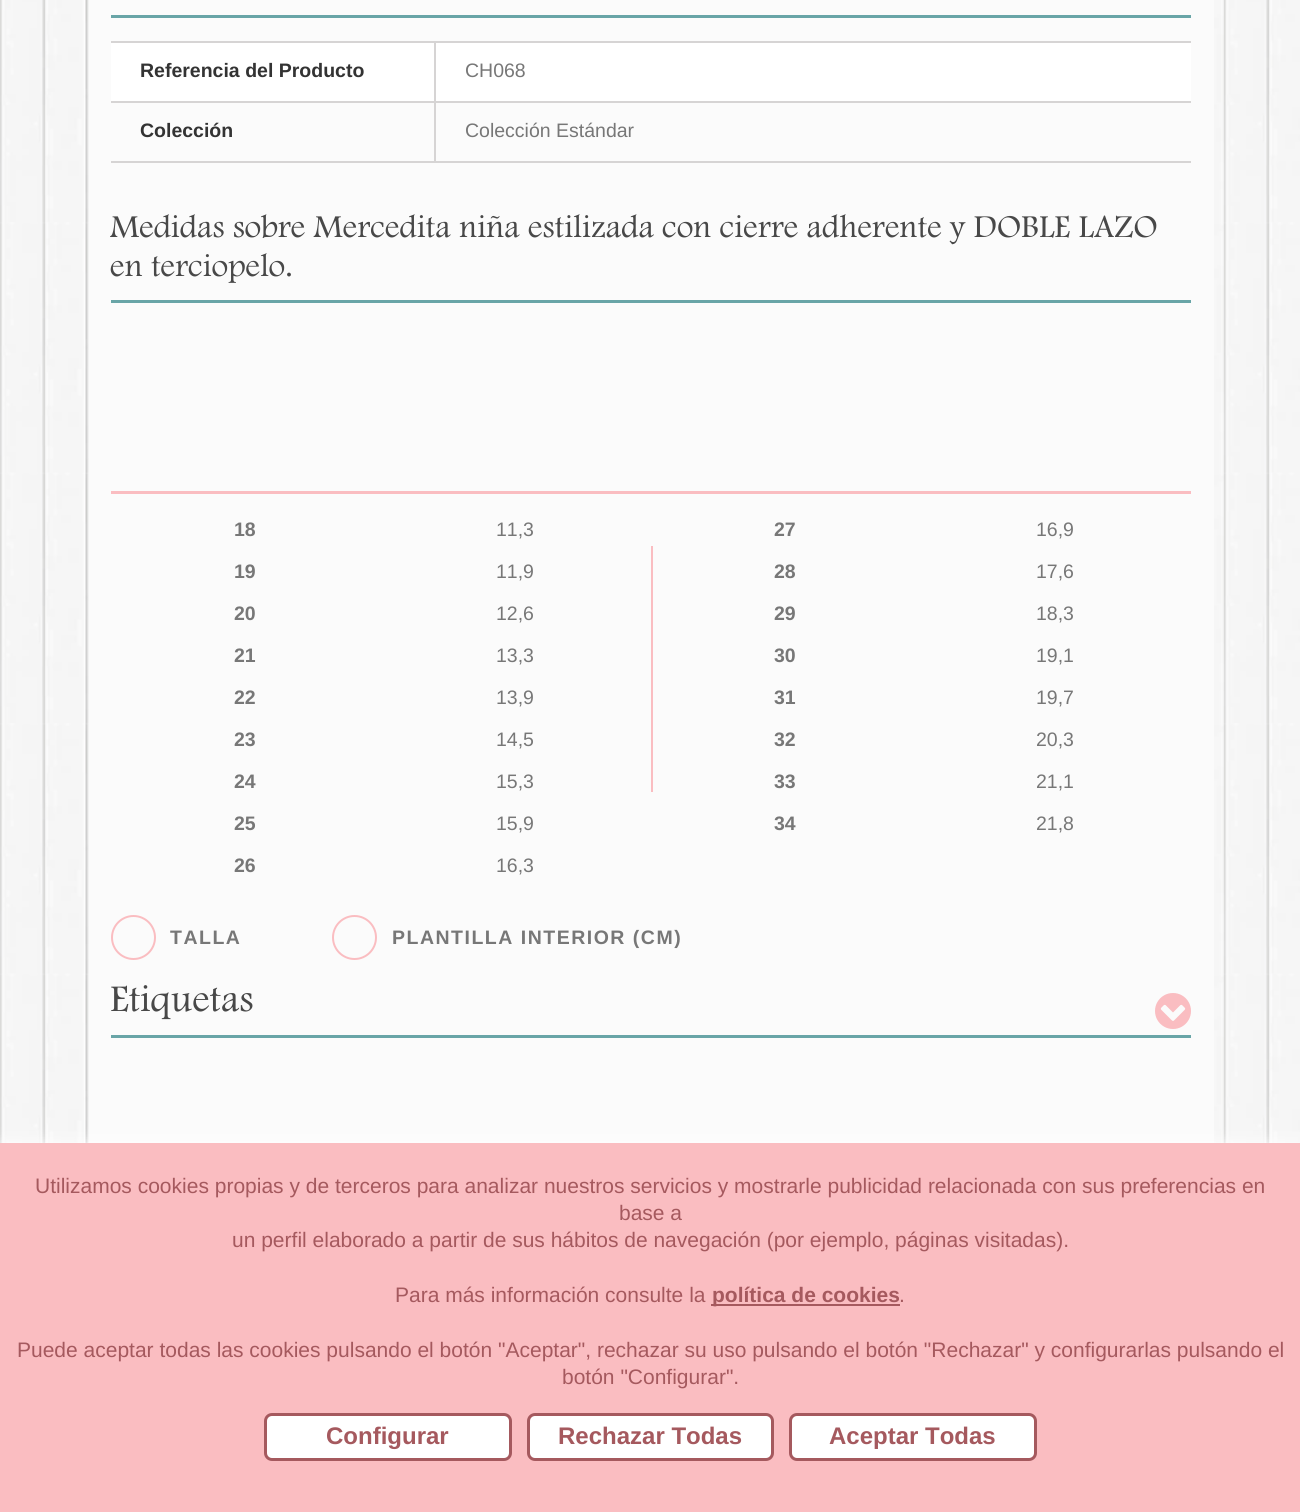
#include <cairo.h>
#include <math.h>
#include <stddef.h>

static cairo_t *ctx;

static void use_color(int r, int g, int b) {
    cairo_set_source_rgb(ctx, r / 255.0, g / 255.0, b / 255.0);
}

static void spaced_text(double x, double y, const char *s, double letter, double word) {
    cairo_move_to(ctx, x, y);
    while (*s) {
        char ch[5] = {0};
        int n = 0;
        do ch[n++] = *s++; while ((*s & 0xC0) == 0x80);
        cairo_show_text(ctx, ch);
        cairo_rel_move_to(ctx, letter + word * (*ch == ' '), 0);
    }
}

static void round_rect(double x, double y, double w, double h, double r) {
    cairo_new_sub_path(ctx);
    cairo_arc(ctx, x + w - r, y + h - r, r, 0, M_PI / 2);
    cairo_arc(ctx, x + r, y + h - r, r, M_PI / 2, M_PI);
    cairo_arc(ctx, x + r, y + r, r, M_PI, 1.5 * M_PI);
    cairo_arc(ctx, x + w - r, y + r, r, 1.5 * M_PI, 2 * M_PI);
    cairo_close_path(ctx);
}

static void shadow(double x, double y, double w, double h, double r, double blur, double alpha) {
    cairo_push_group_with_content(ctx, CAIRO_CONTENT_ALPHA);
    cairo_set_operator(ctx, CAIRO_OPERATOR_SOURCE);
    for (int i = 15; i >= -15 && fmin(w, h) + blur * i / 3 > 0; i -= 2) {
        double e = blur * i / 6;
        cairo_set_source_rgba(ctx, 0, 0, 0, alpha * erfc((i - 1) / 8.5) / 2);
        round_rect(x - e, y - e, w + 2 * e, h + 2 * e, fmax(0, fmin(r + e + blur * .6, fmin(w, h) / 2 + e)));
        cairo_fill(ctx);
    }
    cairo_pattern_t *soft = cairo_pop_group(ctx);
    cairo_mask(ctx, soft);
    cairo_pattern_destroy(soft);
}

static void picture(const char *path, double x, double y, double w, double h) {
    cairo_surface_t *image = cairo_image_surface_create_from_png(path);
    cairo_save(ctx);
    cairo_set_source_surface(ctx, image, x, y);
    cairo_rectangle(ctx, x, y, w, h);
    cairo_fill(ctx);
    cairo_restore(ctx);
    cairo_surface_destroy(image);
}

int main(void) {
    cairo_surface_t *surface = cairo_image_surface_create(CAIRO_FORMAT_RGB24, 1300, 1512);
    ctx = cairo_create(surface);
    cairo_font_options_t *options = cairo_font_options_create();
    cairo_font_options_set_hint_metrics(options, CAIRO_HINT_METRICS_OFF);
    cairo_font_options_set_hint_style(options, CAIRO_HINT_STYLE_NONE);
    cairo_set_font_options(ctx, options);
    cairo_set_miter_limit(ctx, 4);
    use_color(255, 255, 255);
    cairo_paint(ctx);
    picture("img1.png", 0, 0, 1300, 1143);
    use_color(251, 251, 251);
    cairo_rectangle(ctx, 89, 0, 1125, 1143);
    cairo_fill(ctx);
    use_color(105, 165, 167);
    cairo_rectangle(ctx, 111, 15, 1080, 3);
    cairo_fill(ctx);
    use_color(255, 255, 255);
    cairo_rectangle(ctx, 111, 43, 1080, 58);
    cairo_fill(ctx);
    use_color(214, 212, 212);
    cairo_rectangle(ctx, 111, 161, 1080, 2);
    cairo_fill(ctx);
    cairo_rectangle(ctx, 111, 41, 1080, 2);
    cairo_fill(ctx);
    cairo_select_font_face(ctx, "Liberation Sans", CAIRO_FONT_SLANT_NORMAL, CAIRO_FONT_WEIGHT_BOLD);
    cairo_set_font_size(ctx, 19.5);
    use_color(51, 51, 51);
    cairo_move_to(ctx, 140, 77);
    cairo_show_text(ctx, "Referencia del Producto");
    cairo_select_font_face(ctx, "Liberation Sans", CAIRO_FONT_SLANT_NORMAL, CAIRO_FONT_WEIGHT_NORMAL);
    use_color(119, 119, 119);
    cairo_move_to(ctx, 465, 77);
    cairo_show_text(ctx, "CH068");
    use_color(214, 212, 212);
    cairo_rectangle(ctx, 111, 101, 1080, 2);
    cairo_fill(ctx);
    cairo_rectangle(ctx, 434, 41, 2, 121);
    cairo_fill(ctx);
    cairo_select_font_face(ctx, "Liberation Sans", CAIRO_FONT_SLANT_NORMAL, CAIRO_FONT_WEIGHT_BOLD);
    use_color(51, 51, 51);
    cairo_move_to(ctx, 140, 137);
    cairo_show_text(ctx, "Colección");
    cairo_select_font_face(ctx, "Liberation Sans", CAIRO_FONT_SLANT_NORMAL, CAIRO_FONT_WEIGHT_NORMAL);
    use_color(119, 119, 119);
    cairo_move_to(ctx, 465, 137);
    cairo_show_text(ctx, "Colección Estándar");
    use_color(105, 165, 167);
    cairo_rectangle(ctx, 111, 300, 1080, 3);
    cairo_fill(ctx);
    cairo_select_font_face(ctx, "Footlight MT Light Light", CAIRO_FONT_SLANT_NORMAL, CAIRO_FONT_WEIGHT_NORMAL);
    cairo_set_font_size(ctx, 33);
    use_color(72, 72, 72);
    cairo_move_to(ctx, 110, 237);
    cairo_show_text(ctx, "Medidas sobre Mercedita niña estilizada con cierre adherente y DOBLE LAZO");
    cairo_move_to(ctx, 110, 276);
    cairo_show_text(ctx, "en terciopelo.");
    use_color(250, 189, 193);
    cairo_rectangle(ctx, 111, 491, 1080, 3);
    cairo_fill(ctx);
    cairo_select_font_face(ctx, "Liberation Sans", CAIRO_FONT_SLANT_NORMAL, CAIRO_FONT_WEIGHT_BOLD);
    cairo_set_font_size(ctx, 19.5);
    use_color(119, 119, 119);
    cairo_move_to(ctx, 234, 536);
    cairo_show_text(ctx, "18");
    cairo_select_font_face(ctx, "Liberation Sans", CAIRO_FONT_SLANT_NORMAL, CAIRO_FONT_WEIGHT_NORMAL);
    cairo_move_to(ctx, 496, 536);
    cairo_show_text(ctx, "11,3");
    cairo_select_font_face(ctx, "Liberation Sans", CAIRO_FONT_SLANT_NORMAL, CAIRO_FONT_WEIGHT_BOLD);
    cairo_move_to(ctx, 234, 578);
    cairo_show_text(ctx, "19");
    cairo_select_font_face(ctx, "Liberation Sans", CAIRO_FONT_SLANT_NORMAL, CAIRO_FONT_WEIGHT_NORMAL);
    cairo_move_to(ctx, 496, 578);
    cairo_show_text(ctx, "11,9");
    cairo_select_font_face(ctx, "Liberation Sans", CAIRO_FONT_SLANT_NORMAL, CAIRO_FONT_WEIGHT_BOLD);
    cairo_move_to(ctx, 234, 620);
    cairo_show_text(ctx, "20");
    cairo_select_font_face(ctx, "Liberation Sans", CAIRO_FONT_SLANT_NORMAL, CAIRO_FONT_WEIGHT_NORMAL);
    cairo_move_to(ctx, 496, 620);
    cairo_show_text(ctx, "12,6");
    cairo_select_font_face(ctx, "Liberation Sans", CAIRO_FONT_SLANT_NORMAL, CAIRO_FONT_WEIGHT_BOLD);
    cairo_move_to(ctx, 234, 662);
    cairo_show_text(ctx, "21");
    cairo_select_font_face(ctx, "Liberation Sans", CAIRO_FONT_SLANT_NORMAL, CAIRO_FONT_WEIGHT_NORMAL);
    cairo_move_to(ctx, 496, 662);
    cairo_show_text(ctx, "13,3");
    cairo_select_font_face(ctx, "Liberation Sans", CAIRO_FONT_SLANT_NORMAL, CAIRO_FONT_WEIGHT_BOLD);
    cairo_move_to(ctx, 234, 704);
    cairo_show_text(ctx, "22");
    cairo_select_font_face(ctx, "Liberation Sans", CAIRO_FONT_SLANT_NORMAL, CAIRO_FONT_WEIGHT_NORMAL);
    cairo_move_to(ctx, 496, 704);
    cairo_show_text(ctx, "13,9");
    cairo_select_font_face(ctx, "Liberation Sans", CAIRO_FONT_SLANT_NORMAL, CAIRO_FONT_WEIGHT_BOLD);
    cairo_move_to(ctx, 234, 746);
    cairo_show_text(ctx, "23");
    cairo_select_font_face(ctx, "Liberation Sans", CAIRO_FONT_SLANT_NORMAL, CAIRO_FONT_WEIGHT_NORMAL);
    cairo_move_to(ctx, 496, 746);
    cairo_show_text(ctx, "14,5");
    cairo_select_font_face(ctx, "Liberation Sans", CAIRO_FONT_SLANT_NORMAL, CAIRO_FONT_WEIGHT_BOLD);
    cairo_move_to(ctx, 234, 788);
    cairo_show_text(ctx, "24");
    cairo_select_font_face(ctx, "Liberation Sans", CAIRO_FONT_SLANT_NORMAL, CAIRO_FONT_WEIGHT_NORMAL);
    cairo_move_to(ctx, 496, 788);
    cairo_show_text(ctx, "15,3");
    cairo_select_font_face(ctx, "Liberation Sans", CAIRO_FONT_SLANT_NORMAL, CAIRO_FONT_WEIGHT_BOLD);
    cairo_move_to(ctx, 234, 830);
    cairo_show_text(ctx, "25");
    cairo_select_font_face(ctx, "Liberation Sans", CAIRO_FONT_SLANT_NORMAL, CAIRO_FONT_WEIGHT_NORMAL);
    cairo_move_to(ctx, 496, 830);
    cairo_show_text(ctx, "15,9");
    cairo_select_font_face(ctx, "Liberation Sans", CAIRO_FONT_SLANT_NORMAL, CAIRO_FONT_WEIGHT_BOLD);
    cairo_move_to(ctx, 234, 872);
    cairo_show_text(ctx, "26");
    cairo_select_font_face(ctx, "Liberation Sans", CAIRO_FONT_SLANT_NORMAL, CAIRO_FONT_WEIGHT_NORMAL);
    cairo_move_to(ctx, 496, 872);
    cairo_show_text(ctx, "16,3");
    cairo_select_font_face(ctx, "Liberation Sans", CAIRO_FONT_SLANT_NORMAL, CAIRO_FONT_WEIGHT_BOLD);
    cairo_move_to(ctx, 774, 536);
    cairo_show_text(ctx, "27");
    cairo_select_font_face(ctx, "Liberation Sans", CAIRO_FONT_SLANT_NORMAL, CAIRO_FONT_WEIGHT_NORMAL);
    cairo_move_to(ctx, 1036, 536);
    cairo_show_text(ctx, "16,9");
    use_color(250, 189, 193);
    cairo_rectangle(ctx, 651, 546, 2, 246);
    cairo_fill(ctx);
    cairo_select_font_face(ctx, "Liberation Sans", CAIRO_FONT_SLANT_NORMAL, CAIRO_FONT_WEIGHT_BOLD);
    use_color(119, 119, 119);
    cairo_move_to(ctx, 774, 578);
    cairo_show_text(ctx, "28");
    cairo_select_font_face(ctx, "Liberation Sans", CAIRO_FONT_SLANT_NORMAL, CAIRO_FONT_WEIGHT_NORMAL);
    cairo_move_to(ctx, 1036, 578);
    cairo_show_text(ctx, "17,6");
    cairo_select_font_face(ctx, "Liberation Sans", CAIRO_FONT_SLANT_NORMAL, CAIRO_FONT_WEIGHT_BOLD);
    cairo_move_to(ctx, 774, 620);
    cairo_show_text(ctx, "29");
    cairo_select_font_face(ctx, "Liberation Sans", CAIRO_FONT_SLANT_NORMAL, CAIRO_FONT_WEIGHT_NORMAL);
    cairo_move_to(ctx, 1036, 620);
    cairo_show_text(ctx, "18,3");
    cairo_select_font_face(ctx, "Liberation Sans", CAIRO_FONT_SLANT_NORMAL, CAIRO_FONT_WEIGHT_BOLD);
    cairo_move_to(ctx, 774, 662);
    cairo_show_text(ctx, "30");
    cairo_select_font_face(ctx, "Liberation Sans", CAIRO_FONT_SLANT_NORMAL, CAIRO_FONT_WEIGHT_NORMAL);
    cairo_move_to(ctx, 1036, 662);
    cairo_show_text(ctx, "19,1");
    cairo_select_font_face(ctx, "Liberation Sans", CAIRO_FONT_SLANT_NORMAL, CAIRO_FONT_WEIGHT_BOLD);
    cairo_move_to(ctx, 774, 704);
    cairo_show_text(ctx, "31");
    cairo_select_font_face(ctx, "Liberation Sans", CAIRO_FONT_SLANT_NORMAL, CAIRO_FONT_WEIGHT_NORMAL);
    cairo_move_to(ctx, 1036, 704);
    cairo_show_text(ctx, "19,7");
    cairo_select_font_face(ctx, "Liberation Sans", CAIRO_FONT_SLANT_NORMAL, CAIRO_FONT_WEIGHT_BOLD);
    cairo_move_to(ctx, 774, 746);
    cairo_show_text(ctx, "32");
    cairo_select_font_face(ctx, "Liberation Sans", CAIRO_FONT_SLANT_NORMAL, CAIRO_FONT_WEIGHT_NORMAL);
    cairo_move_to(ctx, 1036, 746);
    cairo_show_text(ctx, "20,3");
    cairo_select_font_face(ctx, "Liberation Sans", CAIRO_FONT_SLANT_NORMAL, CAIRO_FONT_WEIGHT_BOLD);
    cairo_move_to(ctx, 774, 788);
    cairo_show_text(ctx, "33");
    cairo_select_font_face(ctx, "Liberation Sans", CAIRO_FONT_SLANT_NORMAL, CAIRO_FONT_WEIGHT_NORMAL);
    cairo_move_to(ctx, 1036, 788);
    cairo_show_text(ctx, "21,1");
    cairo_select_font_face(ctx, "Liberation Sans", CAIRO_FONT_SLANT_NORMAL, CAIRO_FONT_WEIGHT_BOLD);
    cairo_move_to(ctx, 774, 830);
    cairo_show_text(ctx, "34");
    cairo_select_font_face(ctx, "Liberation Sans", CAIRO_FONT_SLANT_NORMAL, CAIRO_FONT_WEIGHT_NORMAL);
    cairo_move_to(ctx, 1036, 830);
    cairo_show_text(ctx, "21,8");
    cairo_new_path(ctx);
    cairo_arc(ctx, 133.5, 937.5, 21.5, 0, 2 * M_PI);
    use_color(250, 189, 193);
    cairo_stroke(ctx);
    cairo_select_font_face(ctx, "Liberation Sans", CAIRO_FONT_SLANT_NORMAL, CAIRO_FONT_WEIGHT_BOLD);
    use_color(119, 119, 119);
    spaced_text(170, 944, "TALLA", 1.5, 0);
    cairo_new_path(ctx);
    cairo_arc(ctx, 354.5, 937.5, 21.5, 0, 2 * M_PI);
    use_color(250, 189, 193);
    cairo_stroke(ctx);
    use_color(119, 119, 119);
    spaced_text(392, 944, "PLANTILLA INTERIOR (CM)", 1.5, 0);
    use_color(105, 165, 167);
    cairo_rectangle(ctx, 111, 1035, 1080, 3);
    cairo_fill(ctx);
    cairo_select_font_face(ctx, "Footlight MT Light Light", CAIRO_FONT_SLANT_NORMAL, CAIRO_FONT_WEIGHT_NORMAL);
    cairo_set_font_size(ctx, 39);
    use_color(72, 72, 72);
    cairo_move_to(ctx, 110, 1011);
    cairo_show_text(ctx, "Etiquetas");
    picture("img2.png", 1155, 993, 36, 36);
    use_color(255, 255, 255);
    shadow(0, 1143, 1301, 369, 0, 7.5, 1);
    use_color(250, 189, 193);
    cairo_rectangle(ctx, 0, 1143, 1300, 369);
    cairo_fill(ctx);
    cairo_select_font_face(ctx, "Liberation Sans", CAIRO_FONT_SLANT_NORMAL, CAIRO_FONT_WEIGHT_NORMAL);
    cairo_set_font_size(ctx, 21);
    use_color(165, 89, 94);
    cairo_move_to(ctx, 35, 1193);
    cairo_show_text(ctx, "Utilizamos cookies propias y de terceros para analizar nuestros servicios y mostrarle publicidad relacionada con sus preferencias en");
    cairo_move_to(ctx, 619, 1220);
    cairo_show_text(ctx, "base a");
    cairo_move_to(ctx, 232, 1247);
    cairo_show_text(ctx, "un perfil elaborado a partir de sus hábitos de navegación (por ejemplo, páginas visitadas).");
    cairo_move_to(ctx, 395, 1302);
    cairo_show_text(ctx, "Para más información consulte la");
    cairo_rectangle(ctx, 711, 1304, 189, 2);
    cairo_fill(ctx);
    cairo_select_font_face(ctx, "Liberation Sans", CAIRO_FONT_SLANT_NORMAL, CAIRO_FONT_WEIGHT_BOLD);
    cairo_move_to(ctx, 712, 1302);
    cairo_show_text(ctx, "política de cookies");
    cairo_select_font_face(ctx, "Liberation Sans", CAIRO_FONT_SLANT_NORMAL, CAIRO_FONT_WEIGHT_NORMAL);
    cairo_move_to(ctx, 899, 1302);
    cairo_show_text(ctx, ".");
    cairo_move_to(ctx, 17, 1357);
    cairo_show_text(ctx, "Puede aceptar todas las cookies pulsando el botón \"Aceptar\", rechazar su uso pulsando el botón \"Rechazar\" y configurarlas pulsando el");
    cairo_move_to(ctx, 562, 1384);
    cairo_show_text(ctx, "botón \"Configurar\".");
    use_color(255, 255, 255);
    round_rect(265.5, 1414.5, 245, 45, 6.5);
    cairo_fill_preserve(ctx);
    use_color(165, 89, 94);
    cairo_set_line_width(ctx, 3);
    cairo_stroke(ctx);
    cairo_select_font_face(ctx, "Liberation Sans", CAIRO_FONT_SLANT_NORMAL, CAIRO_FONT_WEIGHT_BOLD);
    cairo_set_font_size(ctx, 24);
    cairo_move_to(ctx, 326, 1444);
    cairo_show_text(ctx, "Configurar");
    use_color(255, 255, 255);
    round_rect(528.5, 1414.5, 244, 45, 6.5);
    cairo_fill_preserve(ctx);
    use_color(165, 89, 94);
    cairo_stroke(ctx);
    cairo_move_to(ctx, 558, 1444);
    cairo_show_text(ctx, "Rechazar Todas");
    use_color(255, 255, 255);
    round_rect(790.5, 1414.5, 245, 45, 6.5);
    cairo_fill_preserve(ctx);
    use_color(165, 89, 94);
    cairo_stroke(ctx);
    cairo_move_to(ctx, 829, 1444);
    cairo_show_text(ctx, "Aceptar Todas");
    cairo_surface_write_to_png(surface, "result.png");
    cairo_font_options_destroy(options);
    cairo_destroy(ctx);
    cairo_surface_destroy(surface);
    return 0;
}
